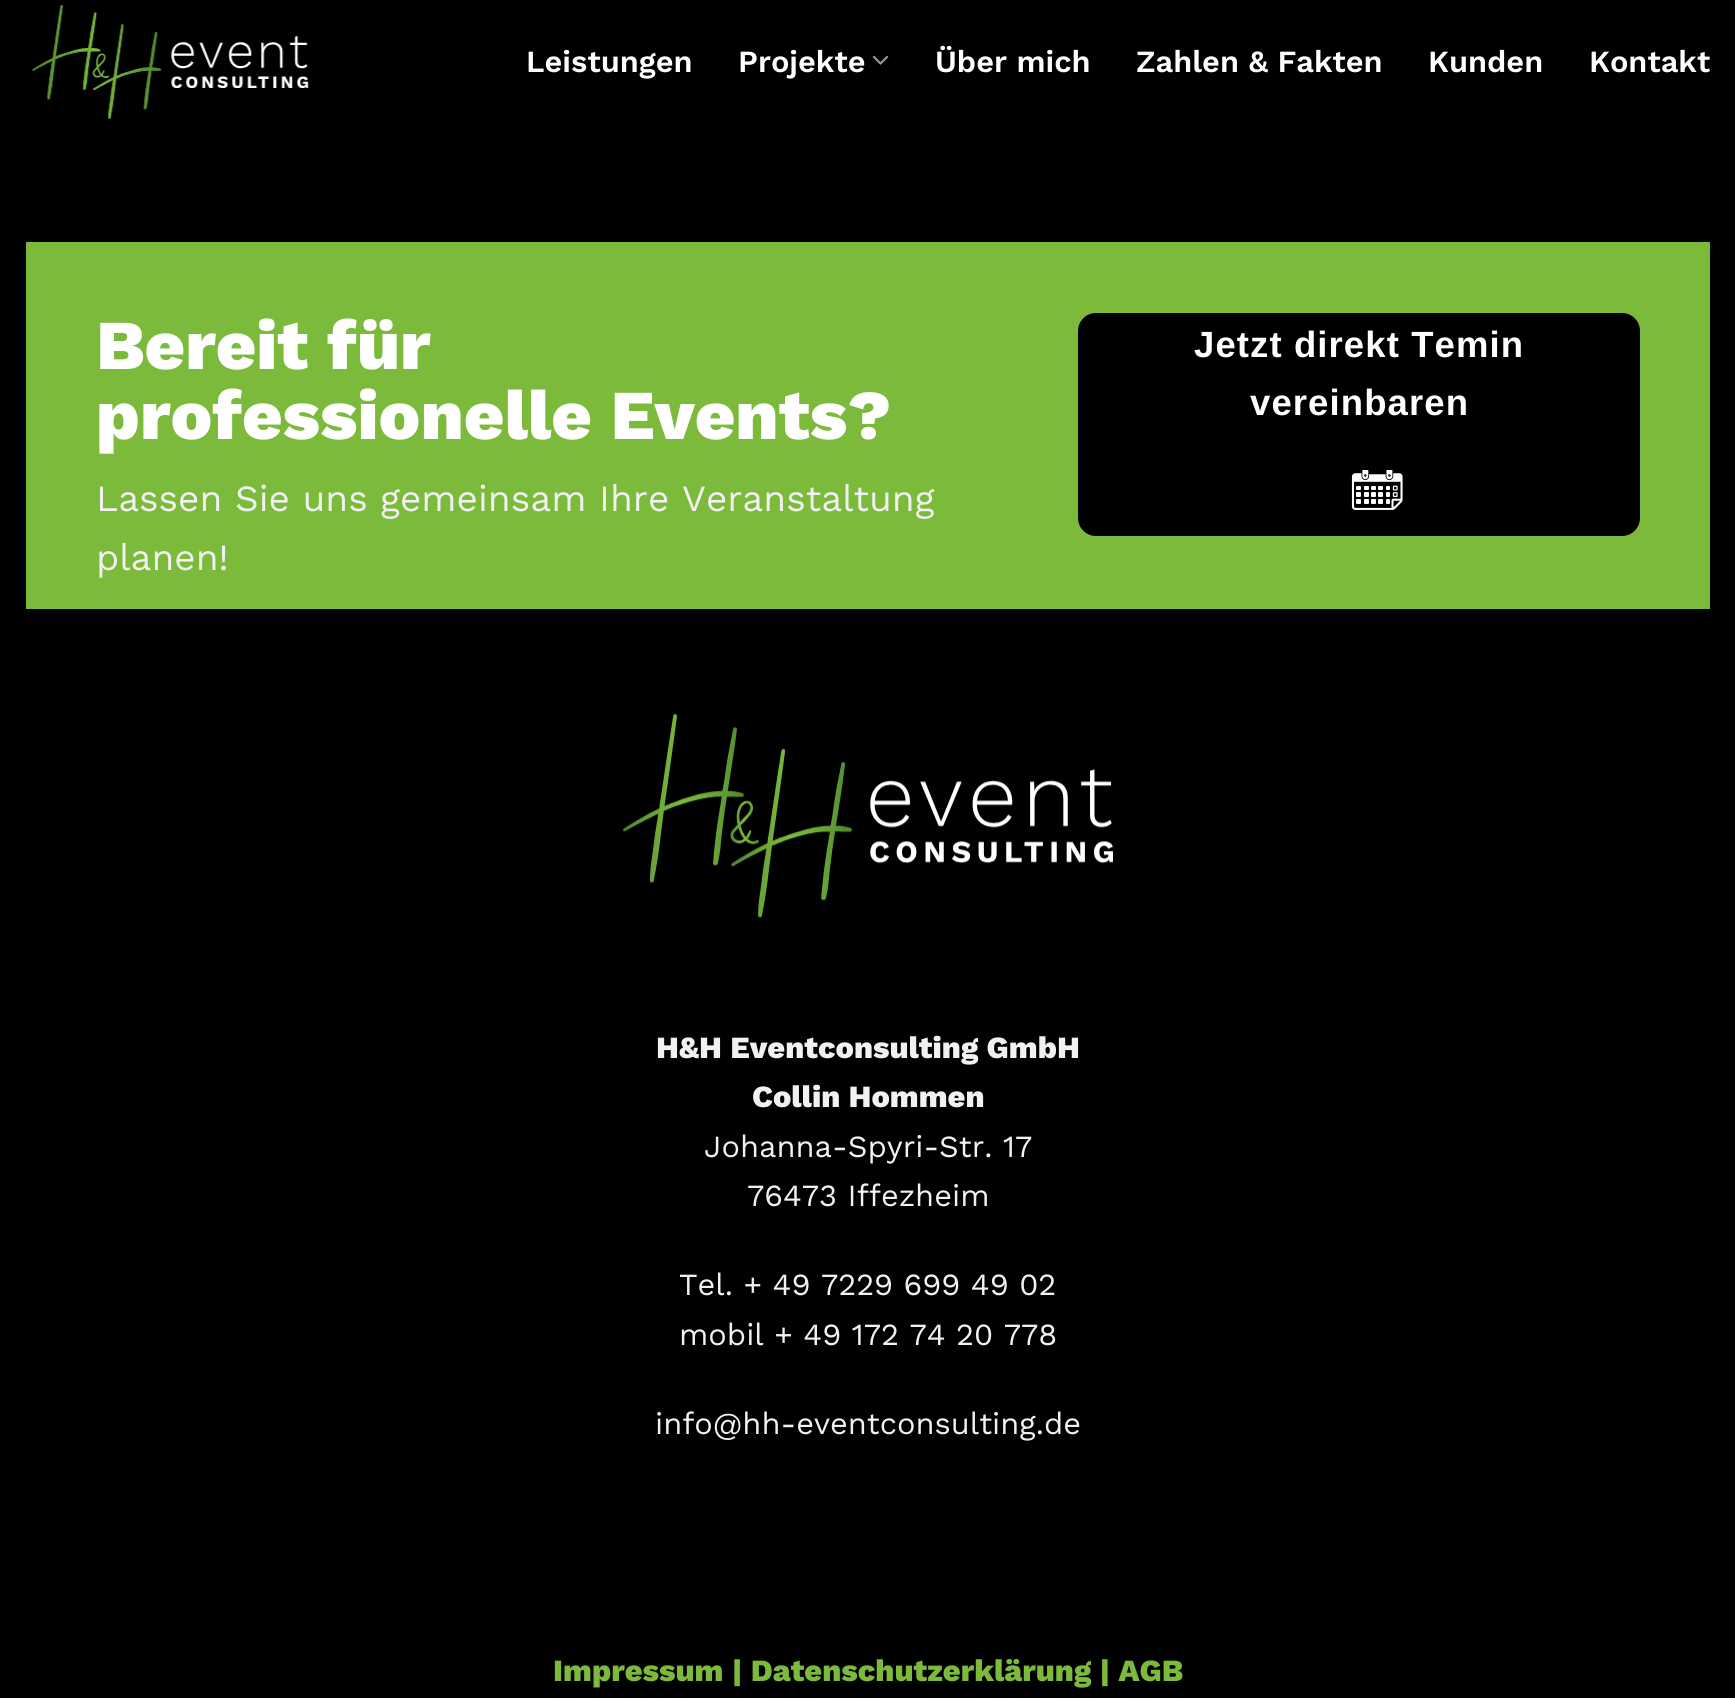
#include <cairo.h>
#include <math.h>
#include <stddef.h>

static cairo_t *ctx;

static void use_color(int r, int g, int b) {
    cairo_set_source_rgb(ctx, r / 255.0, g / 255.0, b / 255.0);
}

static void spaced_text(double x, double y, const char *s, double letter, double word) {
    cairo_move_to(ctx, x, y);
    while (*s) {
        char ch[5] = {0};
        int n = 0;
        do ch[n++] = *s++; while ((*s & 0xC0) == 0x80);
        cairo_show_text(ctx, ch);
        cairo_rel_move_to(ctx, letter + word * (*ch == ' '), 0);
    }
}

static void round_rect(double x, double y, double w, double h, double r) {
    cairo_new_sub_path(ctx);
    cairo_arc(ctx, x + w - r, y + h - r, r, 0, M_PI / 2);
    cairo_arc(ctx, x + r, y + h - r, r, M_PI / 2, M_PI);
    cairo_arc(ctx, x + r, y + r, r, M_PI, 1.5 * M_PI);
    cairo_arc(ctx, x + w - r, y + r, r, 1.5 * M_PI, 2 * M_PI);
    cairo_close_path(ctx);
}

static void picture(const char *path, double x, double y, double w, double h) {
    cairo_surface_t *image = cairo_image_surface_create_from_png(path);
    cairo_save(ctx);
    cairo_set_source_surface(ctx, image, x, y);
    cairo_rectangle(ctx, x, y, w, h);
    cairo_fill(ctx);
    cairo_restore(ctx);
    cairo_surface_destroy(image);
}

int main(void) {
    cairo_surface_t *surface = cairo_image_surface_create(CAIRO_FORMAT_RGB24, 1735, 1698);
    ctx = cairo_create(surface);
    cairo_font_options_t *options = cairo_font_options_create();
    cairo_font_options_set_hint_metrics(options, CAIRO_HINT_METRICS_OFF);
    cairo_font_options_set_hint_style(options, CAIRO_HINT_STYLE_NONE);
    cairo_set_font_options(ctx, options);
    cairo_set_miter_limit(ctx, 4);
    use_color(0, 0, 0);
    cairo_paint(ctx);
    picture("img1.png", 32, 5, 277, 114);
    cairo_select_font_face(ctx, "Work Sans SemiBold", CAIRO_FONT_SLANT_NORMAL, CAIRO_FONT_WEIGHT_NORMAL);
    cairo_set_font_size(ctx, 30.8);
    use_color(255, 255, 255);
    cairo_move_to(ctx, 526, 72);
    cairo_show_text(ctx, "Leistungen");
    cairo_move_to(ctx, 738, 72);
    cairo_show_text(ctx, "Projekte");
    picture("img2.png", 872, 55, 17, 10);
    cairo_move_to(ctx, 935, 72);
    cairo_show_text(ctx, "Über mich");
    cairo_move_to(ctx, 1136, 72);
    cairo_show_text(ctx, "Zahlen & Fakten");
    cairo_move_to(ctx, 1428, 72);
    cairo_show_text(ctx, "Kunden");
    cairo_move_to(ctx, 1589, 72);
    cairo_show_text(ctx, "Kontakt");
    use_color(124, 186, 59);
    cairo_rectangle(ctx, 26, 242, 1684, 367);
    cairo_fill(ctx);
    cairo_select_font_face(ctx, "Work Sans ExtraBold", CAIRO_FONT_SLANT_NORMAL, CAIRO_FONT_WEIGHT_NORMAL);
    cairo_set_font_size(ctx, 70);
    use_color(255, 255, 255);
    cairo_move_to(ctx, 96, 369);
    cairo_show_text(ctx, "Bereit für");
    cairo_move_to(ctx, 96, 439);
    cairo_show_text(ctx, "professionelle Events?");
    cairo_select_font_face(ctx, "Work Sans", CAIRO_FONT_SLANT_NORMAL, CAIRO_FONT_WEIGHT_NORMAL);
    cairo_set_font_size(ctx, 37);
    use_color(241, 241, 241);
    cairo_move_to(ctx, 96, 511);
    cairo_show_text(ctx, "Lassen Sie uns gemeinsam Ihre Veranstaltung");
    cairo_move_to(ctx, 96, 570);
    cairo_show_text(ctx, "planen!");
    use_color(0, 0, 0);
    round_rect(1078, 313, 562, 223, 18);
    cairo_fill(ctx);
    cairo_select_font_face(ctx, "Liberation Sans", CAIRO_FONT_SLANT_NORMAL, CAIRO_FONT_WEIGHT_BOLD);
    cairo_set_font_size(ctx, 36.5);
    use_color(255, 255, 255);
    spaced_text(1194, 357, "Jetzt direkt Temin", 1.1, 0);
    spaced_text(1250, 415, "vereinbaren", 1.1, 0);
    picture("img3.png", 1351, 470, 52, 40);
    picture("img4.png", 623, 714, 490, 204);
    cairo_select_font_face(ctx, "Work Sans ExtraBold", CAIRO_FONT_SLANT_NORMAL, CAIRO_FONT_WEIGHT_NORMAL);
    cairo_set_font_size(ctx, 30.8);
    use_color(241, 241, 241);
    cairo_move_to(ctx, 656, 1058);
    cairo_show_text(ctx, "H&H Eventconsulting GmbH");
    cairo_move_to(ctx, 752, 1107);
    cairo_show_text(ctx, "Collin Hommen");
    cairo_select_font_face(ctx, "Work Sans", CAIRO_FONT_SLANT_NORMAL, CAIRO_FONT_WEIGHT_NORMAL);
    cairo_move_to(ctx, 704, 1157);
    cairo_show_text(ctx, "Johanna-Spyri-Str. 17");
    cairo_move_to(ctx, 747, 1206);
    cairo_show_text(ctx, "76473 Iffezheim");
    cairo_move_to(ctx, 679, 1295);
    cairo_show_text(ctx, "Tel. + 49 7229 699 49 02");
    cairo_move_to(ctx, 679, 1345);
    cairo_show_text(ctx, "mobil + 49 172 74 20 778");
    cairo_move_to(ctx, 655, 1434);
    cairo_show_text(ctx, "info@hh-eventconsulting.de");
    cairo_select_font_face(ctx, "Work Sans ExtraBold", CAIRO_FONT_SLANT_NORMAL, CAIRO_FONT_WEIGHT_NORMAL);
    use_color(124, 186, 59);
    cairo_move_to(ctx, 553, 1681);
    cairo_show_text(ctx, "Impressum | Datenschutzerklärung | AGB");
    cairo_surface_write_to_png(surface, "result.png");
    cairo_font_options_destroy(options);
    cairo_destroy(ctx);
    cairo_surface_destroy(surface);
    return 0;
}
